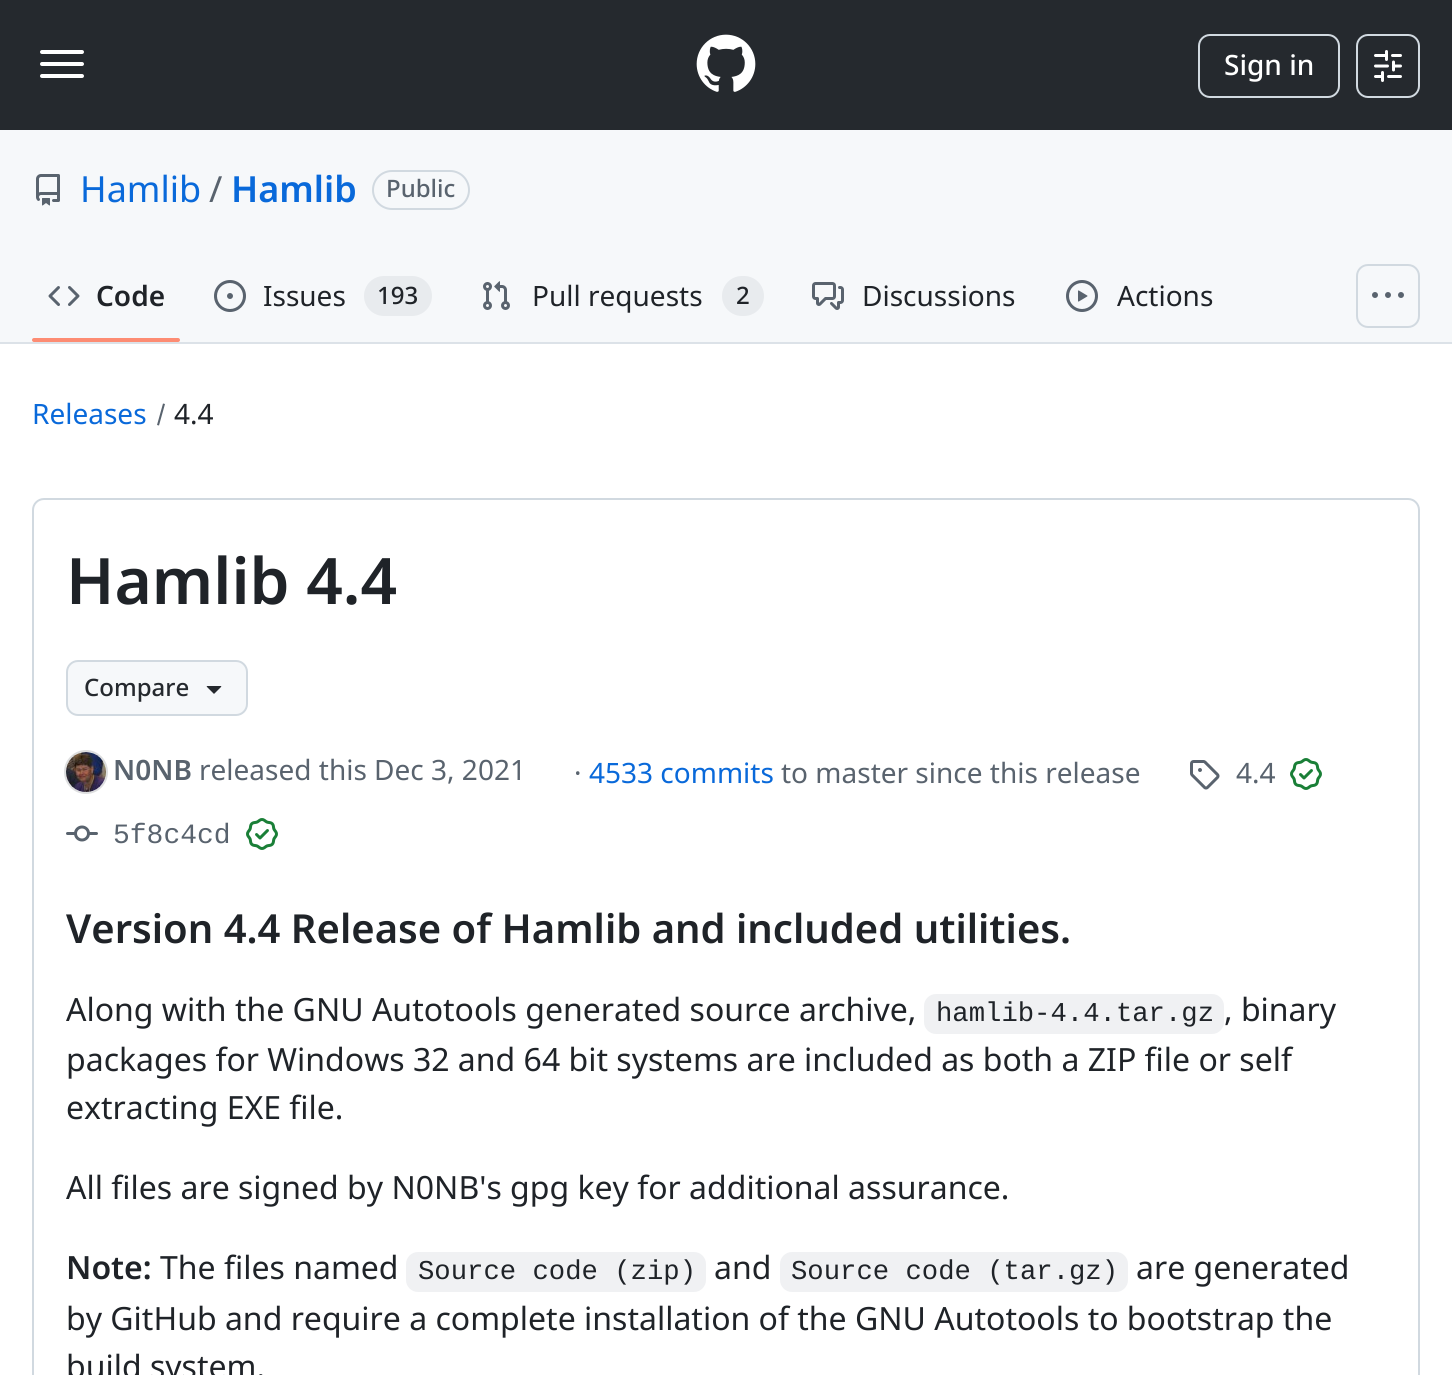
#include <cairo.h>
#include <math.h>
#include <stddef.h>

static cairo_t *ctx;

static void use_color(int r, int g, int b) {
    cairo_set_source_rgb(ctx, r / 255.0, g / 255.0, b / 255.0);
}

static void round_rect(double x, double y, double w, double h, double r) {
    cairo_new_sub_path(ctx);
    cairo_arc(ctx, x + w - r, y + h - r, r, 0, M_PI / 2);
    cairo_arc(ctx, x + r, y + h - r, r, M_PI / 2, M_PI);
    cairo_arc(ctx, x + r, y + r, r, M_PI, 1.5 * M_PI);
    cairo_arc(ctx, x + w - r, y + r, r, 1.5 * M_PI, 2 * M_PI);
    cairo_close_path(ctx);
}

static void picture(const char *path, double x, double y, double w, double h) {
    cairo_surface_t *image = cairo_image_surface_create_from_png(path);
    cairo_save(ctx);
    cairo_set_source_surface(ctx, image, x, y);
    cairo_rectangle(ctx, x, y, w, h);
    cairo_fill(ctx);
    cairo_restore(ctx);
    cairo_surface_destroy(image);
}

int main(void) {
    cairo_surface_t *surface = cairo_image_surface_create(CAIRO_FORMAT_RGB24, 1452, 1375);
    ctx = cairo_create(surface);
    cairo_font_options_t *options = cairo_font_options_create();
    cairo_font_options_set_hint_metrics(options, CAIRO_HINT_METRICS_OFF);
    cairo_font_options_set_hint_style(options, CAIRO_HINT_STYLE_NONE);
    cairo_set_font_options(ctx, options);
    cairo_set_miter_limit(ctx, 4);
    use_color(255, 255, 255);
    cairo_paint(ctx);
    use_color(37, 41, 46);
    cairo_rectangle(ctx, 0, 0, 1452, 130);
    cairo_fill(ctx);
    use_color(255, 255, 255);
    round_rect(40, 50, 44, 4, 2);
    cairo_fill(ctx);
    round_rect(40, 62, 44, 4, 2);
    cairo_fill(ctx);
    round_rect(40, 74, 44, 4, 2);
    cairo_fill(ctx);
    picture("img1.png", 696, 34, 60, 58);
    round_rect(1199, 35, 140, 62, 11);
    use_color(209, 217, 224);
    cairo_stroke(ctx);
    cairo_select_font_face(ctx, "Noto Sans Medium", CAIRO_FONT_SLANT_NORMAL, CAIRO_FONT_WEIGHT_NORMAL);
    cairo_set_font_size(ctx, 28);
    use_color(255, 255, 255);
    cairo_move_to(ctx, 1224, 75);
    cairo_show_text(ctx, "Sign in");
    round_rect(1357, 35, 62, 62, 11);
    use_color(209, 217, 224);
    cairo_stroke(ctx);
    picture("img2.png", 1374, 50, 28, 32);
    use_color(246, 248, 250);
    cairo_rectangle(ctx, 0, 130, 1452, 212);
    cairo_fill(ctx);
    picture("img3.png", 36, 174, 24, 32);
    cairo_select_font_face(ctx, "Noto Sans", CAIRO_FONT_SLANT_NORMAL, CAIRO_FONT_WEIGHT_NORMAL);
    cairo_set_font_size(ctx, 36);
    use_color(9, 105, 218);
    cairo_move_to(ctx, 80, 202);
    cairo_show_text(ctx, "Hamlib");
    use_color(89, 99, 110);
    cairo_move_to(ctx, 209, 202);
    cairo_show_text(ctx, "/");
    cairo_select_font_face(ctx, "Noto Sans SemiBold", CAIRO_FONT_SLANT_NORMAL, CAIRO_FONT_WEIGHT_NORMAL);
    use_color(9, 105, 218);
    cairo_move_to(ctx, 231, 202);
    cairo_show_text(ctx, "Hamlib");
    round_rect(373, 171, 96, 38, 19);
    use_color(209, 217, 224);
    cairo_stroke(ctx);
    cairo_select_font_face(ctx, "Noto Sans Medium", CAIRO_FONT_SLANT_NORMAL, CAIRO_FONT_WEIGHT_NORMAL);
    cairo_set_font_size(ctx, 24);
    use_color(89, 99, 110);
    cairo_move_to(ctx, 386, 197);
    cairo_show_text(ctx, "Public");
    use_color(220, 226, 232);
    cairo_rectangle(ctx, 0, 342, 1452, 2);
    cairo_fill(ctx);
    picture("img4.png", 48, 286, 32, 20);
    cairo_select_font_face(ctx, "Noto Sans SemiBold", CAIRO_FONT_SLANT_NORMAL, CAIRO_FONT_WEIGHT_NORMAL);
    cairo_set_font_size(ctx, 28);
    use_color(31, 35, 40);
    cairo_move_to(ctx, 96, 306);
    cairo_show_text(ctx, "Code");
    use_color(253, 140, 115);
    round_rect(32, 338, 148, 4, 2);
    cairo_fill(ctx);
    picture("img5.png", 214, 280, 32, 32);
    cairo_select_font_face(ctx, "Noto Sans", CAIRO_FONT_SLANT_NORMAL, CAIRO_FONT_WEIGHT_NORMAL);
    use_color(31, 35, 40);
    cairo_move_to(ctx, 263, 306);
    cairo_show_text(ctx, "Issues");
    use_color(232, 235, 238);
    round_rect(364, 276, 68, 40, 20);
    cairo_fill(ctx);
    cairo_select_font_face(ctx, "Noto Sans Medium", CAIRO_FONT_SLANT_NORMAL, CAIRO_FONT_WEIGHT_NORMAL);
    cairo_set_font_size(ctx, 24);
    use_color(31, 35, 40);
    cairo_move_to(ctx, 377, 304);
    cairo_show_text(ctx, "193");
    picture("img6.png", 483, 281, 27, 29);
    cairo_select_font_face(ctx, "Noto Sans", CAIRO_FONT_SLANT_NORMAL, CAIRO_FONT_WEIGHT_NORMAL);
    cairo_set_font_size(ctx, 28);
    cairo_move_to(ctx, 532, 306);
    cairo_show_text(ctx, "Pull requests");
    use_color(232, 235, 238);
    round_rect(722, 276, 42, 40, 20);
    cairo_fill(ctx);
    cairo_select_font_face(ctx, "Noto Sans Medium", CAIRO_FONT_SLANT_NORMAL, CAIRO_FONT_WEIGHT_NORMAL);
    cairo_set_font_size(ctx, 24);
    use_color(31, 35, 40);
    cairo_move_to(ctx, 736, 304);
    cairo_show_text(ctx, "2");
    picture("img7.png", 812, 282, 32, 28);
    cairo_select_font_face(ctx, "Noto Sans", CAIRO_FONT_SLANT_NORMAL, CAIRO_FONT_WEIGHT_NORMAL);
    cairo_set_font_size(ctx, 28);
    cairo_move_to(ctx, 862, 306);
    cairo_show_text(ctx, "Discussions");
    picture("img8.png", 1066, 280, 32, 32);
    cairo_move_to(ctx, 1117, 306);
    cairo_show_text(ctx, "Actions");
    round_rect(1357, 265, 62, 62, 11);
    use_color(209, 217, 224);
    cairo_stroke(ctx);
    picture("img9.png", 1372, 292, 32, 6);
    use_color(9, 105, 218);
    cairo_move_to(ctx, 32, 424);
    cairo_show_text(ctx, "Releases");
    use_color(89, 99, 110);
    cairo_new_path(ctx);
    cairo_move_to(ctx, 163, 403.5);
    cairo_line_to(ctx, 165, 404);
    cairo_line_to(ctx, 159, 425.5);
    cairo_line_to(ctx, 157, 425);
    cairo_close_path(ctx);
    cairo_fill(ctx);
    use_color(31, 35, 40);
    cairo_move_to(ctx, 174, 424);
    cairo_show_text(ctx, "4.4");
    round_rect(33, 499, 1386, 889, 11);
    use_color(209, 217, 224);
    cairo_stroke(ctx);
    cairo_select_font_face(ctx, "Noto Sans SemiBold", CAIRO_FONT_SLANT_NORMAL, CAIRO_FONT_WEIGHT_NORMAL);
    cairo_set_font_size(ctx, 64);
    use_color(31, 35, 40);
    cairo_move_to(ctx, 66, 604);
    cairo_show_text(ctx, "Hamlib 4.4");
    use_color(246, 248, 250);
    round_rect(67, 661, 180, 54, 11);
    cairo_fill_preserve(ctx);
    use_color(209, 217, 224);
    cairo_stroke(ctx);
    cairo_select_font_face(ctx, "Noto Sans Medium", CAIRO_FONT_SLANT_NORMAL, CAIRO_FONT_WEIGHT_NORMAL);
    cairo_set_font_size(ctx, 24);
    use_color(37, 41, 46);
    cairo_move_to(ctx, 84, 696);
    cairo_show_text(ctx, "Compare");
    picture("img10.png", 206, 686, 16, 8);
    cairo_arc(ctx, 86, 772, 21, 0, 2 * M_PI);
    use_color(221, 222, 223);
    cairo_stroke(ctx);
    use_color(255, 255, 255);
    cairo_arc(ctx, 86, 772, 20, 0, 2 * M_PI);
    cairo_fill(ctx);
    picture("img11.png", 66, 752, 40, 40);
    cairo_select_font_face(ctx, "Noto Sans SemiBold", CAIRO_FONT_SLANT_NORMAL, CAIRO_FONT_WEIGHT_NORMAL);
    cairo_set_font_size(ctx, 28);
    use_color(89, 99, 110);
    cairo_move_to(ctx, 113, 780);
    cairo_show_text(ctx, "N0NB");
    cairo_select_font_face(ctx, "Noto Sans", CAIRO_FONT_SLANT_NORMAL, CAIRO_FONT_WEIGHT_NORMAL);
    cairo_move_to(ctx, 199, 780);
    cairo_show_text(ctx, "released this Dec 3, 2021");
    cairo_move_to(ctx, 574, 783);
    cairo_show_text(ctx, "·");
    use_color(9, 105, 218);
    cairo_move_to(ctx, 589, 783);
    cairo_show_text(ctx, "4533 commits");
    use_color(89, 99, 110);
    cairo_move_to(ctx, 781, 783);
    cairo_show_text(ctx, "to master since this release");
    picture("img12.png", 1190, 760, 30, 30);
    cairo_move_to(ctx, 1236, 783);
    cairo_show_text(ctx, "4.4");
    picture("img13.png", 1290, 758, 32, 32);
    picture("img14.png", 66, 825, 32, 17);
    cairo_select_font_face(ctx, "Liberation Mono", CAIRO_FONT_SLANT_NORMAL, CAIRO_FONT_WEIGHT_NORMAL);
    cairo_move_to(ctx, 113, 843);
    cairo_show_text(ctx, "5f8c4cd");
    picture("img13.png", 246, 818, 32, 32);
    cairo_select_font_face(ctx, "Noto Sans SemiBold", CAIRO_FONT_SLANT_NORMAL, CAIRO_FONT_WEIGHT_NORMAL);
    cairo_set_font_size(ctx, 40);
    use_color(31, 35, 40);
    cairo_move_to(ctx, 66, 943);
    cairo_show_text(ctx, "Version 4.4 Release of Hamlib and included utilities.");
    cairo_select_font_face(ctx, "Noto Sans", CAIRO_FONT_SLANT_NORMAL, CAIRO_FONT_WEIGHT_NORMAL);
    cairo_set_font_size(ctx, 32);
    cairo_move_to(ctx, 66, 1021);
    cairo_show_text(ctx, "Along with the GNU Autotools generated source archive,");
    use_color(240, 241, 243);
    round_rect(924, 994, 300, 40, 12);
    cairo_fill(ctx);
    cairo_select_font_face(ctx, "Liberation Mono", CAIRO_FONT_SLANT_NORMAL, CAIRO_FONT_WEIGHT_NORMAL);
    cairo_set_font_size(ctx, 27.25);
    use_color(31, 35, 40);
    cairo_move_to(ctx, 936, 1021);
    cairo_show_text(ctx, "hamlib-4.4.tar.gz");
    cairo_select_font_face(ctx, "Noto Sans", CAIRO_FONT_SLANT_NORMAL, CAIRO_FONT_WEIGHT_NORMAL);
    cairo_set_font_size(ctx, 32);
    cairo_move_to(ctx, 1224, 1021);
    cairo_show_text(ctx, ", binary");
    cairo_move_to(ctx, 66, 1071);
    cairo_show_text(ctx, "packages for Windows 32 and 64 bit systems are included as both a ZIP file or self");
    cairo_move_to(ctx, 66, 1119);
    cairo_show_text(ctx, "extracting EXE file.");
    cairo_move_to(ctx, 66, 1199);
    cairo_show_text(ctx, "All files are signed by N0NB's gpg key for additional assurance.");
    cairo_select_font_face(ctx, "Noto Sans SemiBold", CAIRO_FONT_SLANT_NORMAL, CAIRO_FONT_WEIGHT_NORMAL);
    cairo_move_to(ctx, 66, 1279);
    cairo_show_text(ctx, "Note:");
    cairo_select_font_face(ctx, "Noto Sans", CAIRO_FONT_SLANT_NORMAL, CAIRO_FONT_WEIGHT_NORMAL);
    cairo_move_to(ctx, 160, 1279);
    cairo_show_text(ctx, "The files named");
    use_color(240, 241, 243);
    round_rect(406, 1252, 300, 40, 12);
    cairo_fill(ctx);
    cairo_select_font_face(ctx, "Liberation Mono", CAIRO_FONT_SLANT_NORMAL, CAIRO_FONT_WEIGHT_NORMAL);
    cairo_set_font_size(ctx, 27.25);
    use_color(31, 35, 40);
    cairo_move_to(ctx, 418, 1279);
    cairo_show_text(ctx, "Source code (zip)");
    cairo_select_font_face(ctx, "Noto Sans", CAIRO_FONT_SLANT_NORMAL, CAIRO_FONT_WEIGHT_NORMAL);
    cairo_set_font_size(ctx, 32);
    cairo_move_to(ctx, 714, 1279);
    cairo_show_text(ctx, "and");
    use_color(240, 241, 243);
    round_rect(780, 1252, 348, 40, 12);
    cairo_fill(ctx);
    cairo_select_font_face(ctx, "Liberation Mono", CAIRO_FONT_SLANT_NORMAL, CAIRO_FONT_WEIGHT_NORMAL);
    cairo_set_font_size(ctx, 27.25);
    use_color(31, 35, 40);
    cairo_move_to(ctx, 791, 1279);
    cairo_show_text(ctx, "Source code (tar.gz)");
    cairo_select_font_face(ctx, "Noto Sans", CAIRO_FONT_SLANT_NORMAL, CAIRO_FONT_WEIGHT_NORMAL);
    cairo_set_font_size(ctx, 32);
    cairo_move_to(ctx, 1136, 1279);
    cairo_show_text(ctx, "are generated");
    cairo_move_to(ctx, 66, 1330);
    cairo_show_text(ctx, "by GitHub and require a complete installation of the GNU Autotools to bootstrap the");
    cairo_move_to(ctx, 66, 1378);
    cairo_show_text(ctx, "build system.");
    cairo_surface_write_to_png(surface, "result.png");
    cairo_font_options_destroy(options);
    cairo_destroy(ctx);
    cairo_surface_destroy(surface);
    return 0;
}
